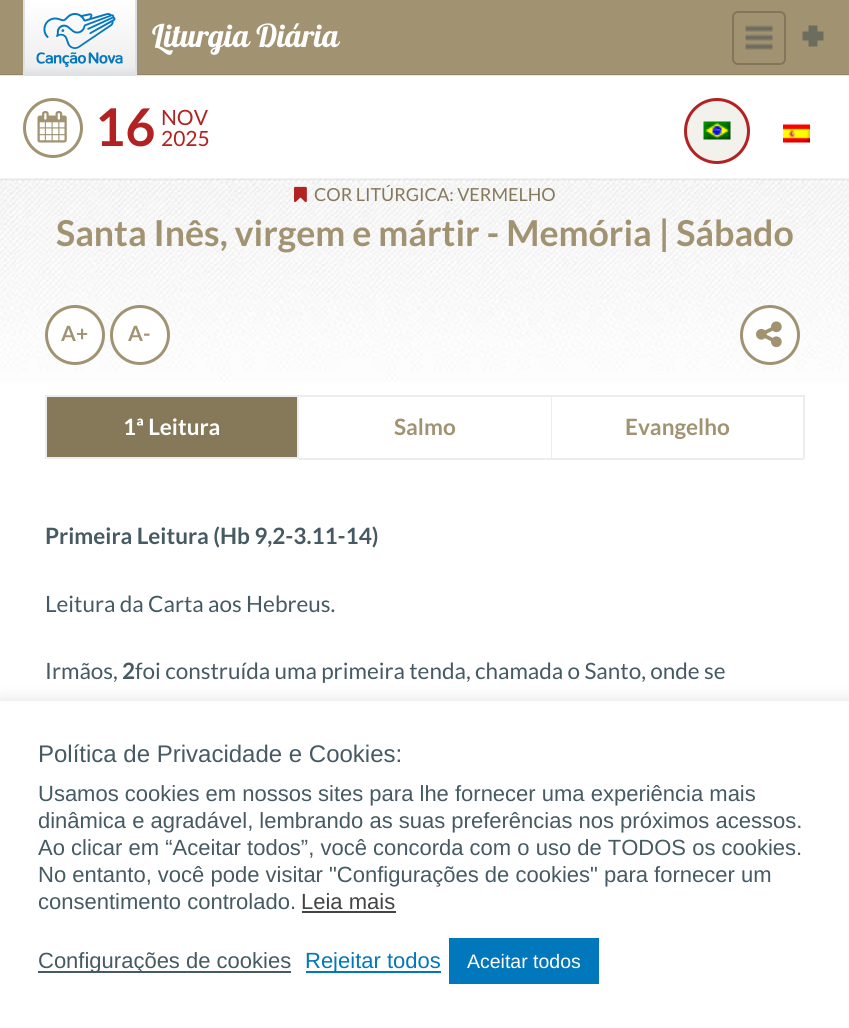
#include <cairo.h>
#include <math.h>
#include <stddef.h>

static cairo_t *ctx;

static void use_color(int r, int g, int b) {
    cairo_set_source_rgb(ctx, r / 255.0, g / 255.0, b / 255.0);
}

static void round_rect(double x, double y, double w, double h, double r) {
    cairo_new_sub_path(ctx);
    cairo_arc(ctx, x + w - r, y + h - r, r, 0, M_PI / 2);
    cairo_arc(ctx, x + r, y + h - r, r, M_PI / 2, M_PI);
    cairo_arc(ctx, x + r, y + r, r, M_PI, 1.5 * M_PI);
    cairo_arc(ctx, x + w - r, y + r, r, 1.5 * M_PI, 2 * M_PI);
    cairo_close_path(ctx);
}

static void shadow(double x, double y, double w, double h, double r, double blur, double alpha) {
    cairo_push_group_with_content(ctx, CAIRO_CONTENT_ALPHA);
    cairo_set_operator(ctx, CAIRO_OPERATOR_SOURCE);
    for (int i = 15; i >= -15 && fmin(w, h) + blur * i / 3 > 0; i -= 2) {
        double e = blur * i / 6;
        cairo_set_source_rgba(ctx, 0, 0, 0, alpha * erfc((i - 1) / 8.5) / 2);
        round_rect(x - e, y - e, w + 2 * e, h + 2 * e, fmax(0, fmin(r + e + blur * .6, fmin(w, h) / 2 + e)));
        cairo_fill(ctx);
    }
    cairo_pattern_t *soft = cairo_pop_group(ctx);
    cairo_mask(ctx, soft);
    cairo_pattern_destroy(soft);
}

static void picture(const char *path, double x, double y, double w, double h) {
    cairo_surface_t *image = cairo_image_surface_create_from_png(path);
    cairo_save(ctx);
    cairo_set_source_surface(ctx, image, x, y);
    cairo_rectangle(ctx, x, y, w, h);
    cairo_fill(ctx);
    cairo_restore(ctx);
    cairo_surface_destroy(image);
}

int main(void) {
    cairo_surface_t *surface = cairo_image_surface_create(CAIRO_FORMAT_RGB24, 849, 1028);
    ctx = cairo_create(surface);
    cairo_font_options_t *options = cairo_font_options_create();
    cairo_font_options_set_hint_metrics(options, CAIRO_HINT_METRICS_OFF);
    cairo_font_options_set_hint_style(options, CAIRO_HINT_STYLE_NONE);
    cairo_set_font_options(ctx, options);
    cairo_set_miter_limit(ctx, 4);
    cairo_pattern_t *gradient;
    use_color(255, 255, 255);
    cairo_paint(ctx);
    use_color(230, 230, 230);
    cairo_rectangle(ctx, 0, 75, 849, 1);
    cairo_fill(ctx);
    use_color(161, 147, 114);
    cairo_rectangle(ctx, 0, 0, 849, 74);
    cairo_fill(ctx);
    use_color(145, 132, 103);
    cairo_rectangle(ctx, 0, 74, 849, 1);
    cairo_fill(ctx);
    gradient = cairo_pattern_create_linear(80, 0, 80, 74);
    cairo_pattern_add_color_stop_rgba(gradient, 0, 1, 1, 1, 1);
    cairo_pattern_add_color_stop_rgba(gradient, 0.9, 0.933, 0.933, 0.933, 1);
    cairo_pattern_add_color_stop_rgba(gradient, 1, 0.882, 0.882, 0.882, 1);
    cairo_set_source(ctx, gradient);
    cairo_pattern_destroy(gradient);
    cairo_rectangle(ctx, 25, 0, 110, 74);
    cairo_fill(ctx);
    use_color(220, 226, 229);
    cairo_rectangle(ctx, 135, 0, 2, 75);
    cairo_fill(ctx);
    cairo_rectangle(ctx, 23, 74, 114, 2);
    cairo_fill(ctx);
    cairo_rectangle(ctx, 23, 0, 2, 75);
    cairo_fill(ctx);
    picture("img1.png", 36, 13, 87, 54);
    cairo_select_font_face(ctx, "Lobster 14", CAIRO_FONT_SLANT_NORMAL, CAIRO_FONT_WEIGHT_NORMAL);
    cairo_set_font_size(ctx, 31.5);
    use_color(255, 255, 255);
    cairo_move_to(ctx, 152, 47);
    cairo_show_text(ctx, "Liturgia Diária");
    picture("img2.png", 745, 25, 28, 25);
    round_rect(733, 12, 52, 52, 5);
    use_color(129, 118, 91);
    cairo_stroke(ctx);
    picture("img3.png", 802, 25, 22, 22);
    cairo_arc(ctx, 53, 128, 28.5, 0, 2 * M_PI);
    use_color(161, 147, 114);
    cairo_set_line_width(ctx, 3);
    cairo_stroke(ctx);
    picture("img4.png", 37, 111, 30, 32);
    cairo_select_font_face(ctx, "Lato", CAIRO_FONT_SLANT_NORMAL, CAIRO_FONT_WEIGHT_BOLD);
    cairo_set_font_size(ctx, 52);
    use_color(178, 34, 34);
    cairo_move_to(ctx, 95, 146);
    cairo_show_text(ctx, "16");
    cairo_select_font_face(ctx, "Lato", CAIRO_FONT_SLANT_NORMAL, CAIRO_FONT_WEIGHT_NORMAL);
    cairo_set_font_size(ctx, 21);
    cairo_move_to(ctx, 161, 125);
    cairo_show_text(ctx, "NOV");
    cairo_move_to(ctx, 161, 146);
    cairo_show_text(ctx, "2025");
    use_color(243, 241, 236);
    cairo_new_path(ctx);
    cairo_arc(ctx, 717, 131, 33, 0, 2 * M_PI);
    cairo_fill(ctx);
    picture("img5.png", 703, 121, 28, 19);
    cairo_arc(ctx, 717, 131, 31.5, 0, 2 * M_PI);
    use_color(178, 34, 34);
    cairo_stroke(ctx);
    picture("img6.png", 783, 124, 27, 19);
    picture("img7.png", 0, 178, 849, 204);
    picture("img8.png", 294, 186, 13, 16);
    cairo_set_font_size(ctx, 18);
    use_color(134, 121, 90);
    cairo_move_to(ctx, 314, 201);
    cairo_show_text(ctx, "COR LITÚRGICA: VERMELHO");
    cairo_select_font_face(ctx, "Lato", CAIRO_FONT_SLANT_NORMAL, CAIRO_FONT_WEIGHT_BOLD);
    cairo_set_font_size(ctx, 35.7);
    use_color(161, 147, 114);
    cairo_move_to(ctx, 56, 246);
    cairo_show_text(ctx, "Santa Inês, virgem e mártir - Memória | Sábado");
    use_color(255, 255, 255);
    cairo_new_path(ctx);
    cairo_arc(ctx, 75, 335, 28.5, 0, 2 * M_PI);
    cairo_fill_preserve(ctx);
    use_color(161, 147, 114);
    cairo_stroke(ctx);
    cairo_set_font_size(ctx, 21);
    cairo_move_to(ctx, 61, 341);
    cairo_show_text(ctx, "A+");
    use_color(255, 255, 255);
    cairo_new_path(ctx);
    cairo_arc(ctx, 140, 335, 28.5, 0, 2 * M_PI);
    cairo_fill_preserve(ctx);
    use_color(161, 147, 114);
    cairo_stroke(ctx);
    cairo_move_to(ctx, 128, 341);
    cairo_show_text(ctx, "A-");
    use_color(255, 255, 255);
    cairo_new_path(ctx);
    cairo_arc(ctx, 770, 335, 28.5, 0, 2 * M_PI);
    cairo_fill_preserve(ctx);
    use_color(161, 147, 114);
    cairo_stroke(ctx);
    picture("img9.png", 756, 321, 26, 27);
    use_color(134, 121, 90);
    cairo_rectangle(ctx, 46, 396, 252, 62);
    cairo_fill_preserve(ctx);
    use_color(235, 238, 240);
    cairo_set_line_width(ctx, 2);
    cairo_stroke(ctx);
    cairo_set_font_size(ctx, 22.5);
    use_color(255, 255, 255);
    cairo_move_to(ctx, 123, 435);
    cairo_show_text(ctx, "1ª Leitura");
    use_color(235, 238, 240);
    cairo_rectangle(ctx, 299, 395, 505, 2);
    cairo_fill(ctx);
    cairo_rectangle(ctx, 551, 395, 1, 64);
    cairo_fill(ctx);
    cairo_rectangle(ctx, 299, 458, 253, 2);
    cairo_fill(ctx);
    use_color(161, 147, 114);
    cairo_move_to(ctx, 394, 435);
    cairo_show_text(ctx, "Salmo");
    use_color(235, 238, 240);
    cairo_rectangle(ctx, 803, 395, 2, 64);
    cairo_fill(ctx);
    cairo_rectangle(ctx, 552, 458, 252, 2);
    cairo_fill(ctx);
    use_color(161, 147, 114);
    cairo_move_to(ctx, 625, 435);
    cairo_show_text(ctx, "Evangelho");
    use_color(69, 90, 99);
    cairo_move_to(ctx, 45, 544);
    cairo_show_text(ctx, "Primeira Leitura (Hb 9,2-3.11-14)");
    cairo_select_font_face(ctx, "Lato", CAIRO_FONT_SLANT_NORMAL, CAIRO_FONT_WEIGHT_NORMAL);
    cairo_move_to(ctx, 45, 612);
    cairo_show_text(ctx, "Leitura da Carta aos Hebreus.");
    cairo_move_to(ctx, 45, 679);
    cairo_show_text(ctx, "Irmãos,");
    cairo_select_font_face(ctx, "Lato", CAIRO_FONT_SLANT_NORMAL, CAIRO_FONT_WEIGHT_BOLD);
    cairo_move_to(ctx, 122, 679);
    cairo_show_text(ctx, "2");
    cairo_select_font_face(ctx, "Lato", CAIRO_FONT_SLANT_NORMAL, CAIRO_FONT_WEIGHT_NORMAL);
    cairo_move_to(ctx, 135, 679);
    cairo_show_text(ctx, "foi construída uma primeira tenda, chamada o Santo, onde se");
    use_color(172, 171, 171);
    shadow(0, 699, 849, 329, 0, 7.5, 0.3);
    use_color(255, 255, 255);
    cairo_rectangle(ctx, 0, 701, 849, 327);
    cairo_fill(ctx);
    cairo_select_font_face(ctx, "Liberation Sans", CAIRO_FONT_SLANT_NORMAL, CAIRO_FONT_WEIGHT_NORMAL);
    cairo_set_font_size(ctx, 24);
    use_color(69, 90, 99);
    cairo_move_to(ctx, 38, 762);
    cairo_show_text(ctx, "Política de Privacidade e Cookies:");
    cairo_set_font_size(ctx, 22);
    cairo_move_to(ctx, 38, 801);
    cairo_show_text(ctx, "Usamos cookies em nossos sites para lhe fornecer uma experiência mais");
    cairo_move_to(ctx, 38, 828);
    cairo_show_text(ctx, "dinâmica e agradável, lembrando as suas preferências nos próximos acessos.");
    cairo_move_to(ctx, 38, 855);
    cairo_show_text(ctx, "Ao clicar em “Aceitar todos”, você concorda com o uso de TODOS os cookies.");
    cairo_move_to(ctx, 38, 882);
    cairo_show_text(ctx, "No entanto, você pode visitar \"Configurações de cookies\" para fornecer um");
    cairo_move_to(ctx, 38, 909);
    cairo_show_text(ctx, "consentimento controlado.");
    use_color(68, 68, 68);
    cairo_move_to(ctx, 301, 909);
    cairo_show_text(ctx, "Leia mais");
    cairo_rectangle(ctx, 302, 911, 94, 2);
    cairo_fill(ctx);
    use_color(69, 90, 99);
    cairo_rectangle(ctx, 38, 971, 253, 2);
    cairo_fill(ctx);
    cairo_move_to(ctx, 38, 968);
    cairo_show_text(ctx, "Configurações de cookies");
    use_color(1, 119, 188);
    cairo_rectangle(ctx, 306, 971, 135, 2);
    cairo_fill(ctx);
    cairo_move_to(ctx, 305, 968);
    cairo_show_text(ctx, "Rejeitar todos");
    cairo_rectangle(ctx, 449, 938, 150, 46);
    cairo_fill(ctx);
    cairo_set_font_size(ctx, 19.5);
    use_color(255, 255, 255);
    cairo_move_to(ctx, 467, 968);
    cairo_show_text(ctx, "Aceitar todos");
    cairo_surface_write_to_png(surface, "result.png");
    cairo_font_options_destroy(options);
    cairo_destroy(ctx);
    cairo_surface_destroy(surface);
    return 0;
}
